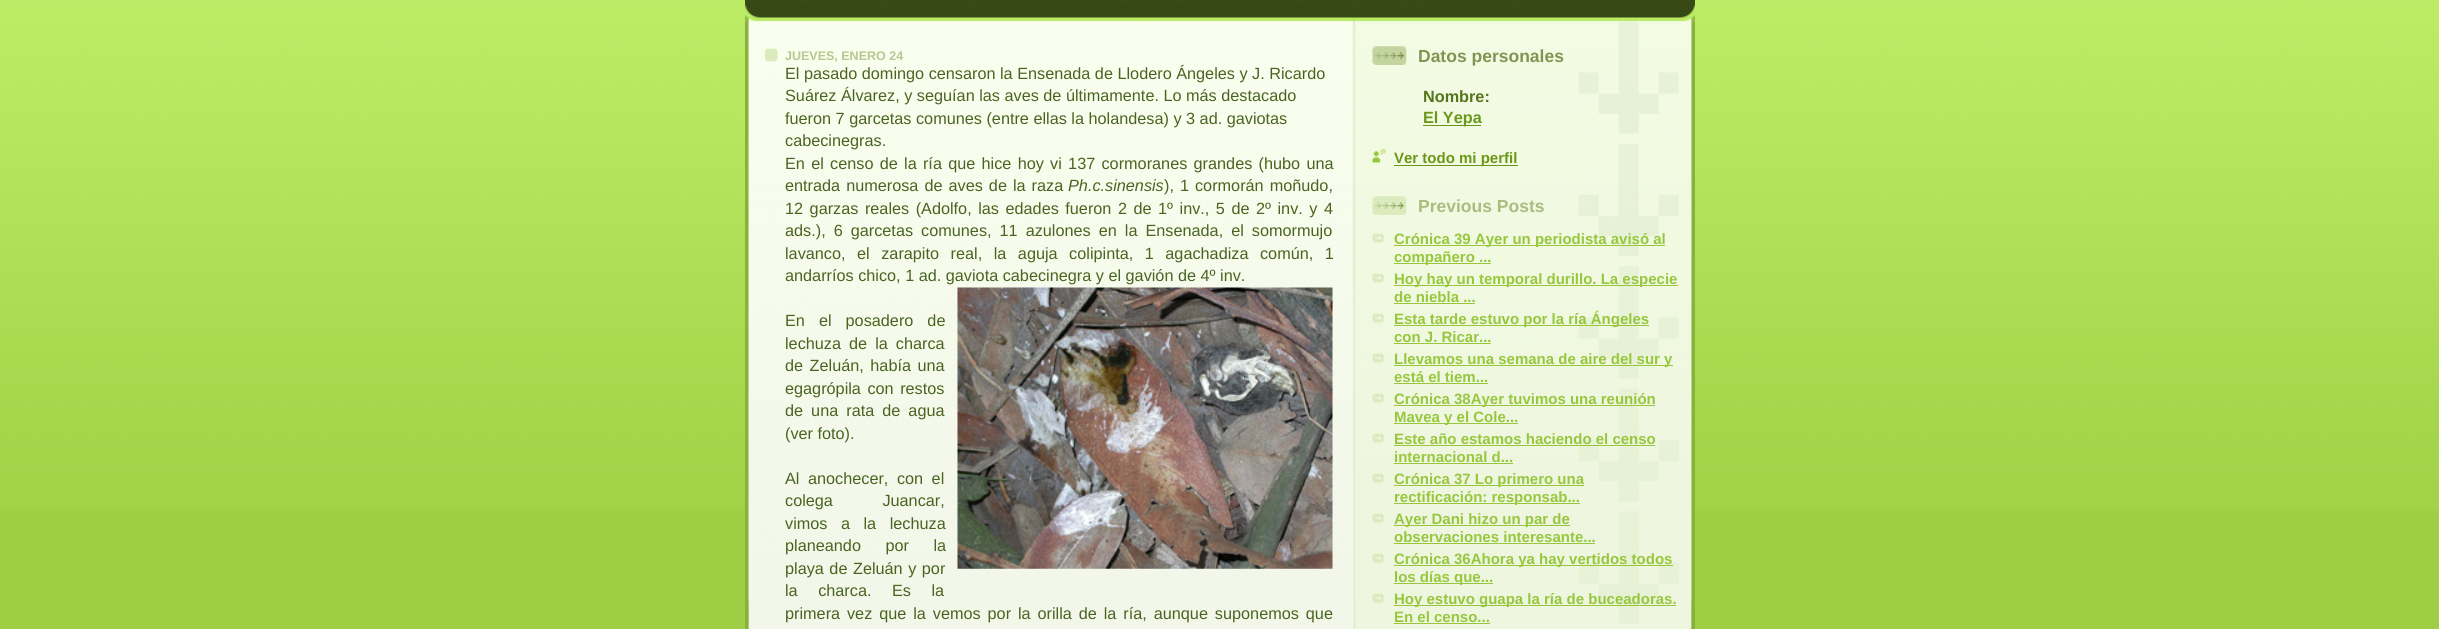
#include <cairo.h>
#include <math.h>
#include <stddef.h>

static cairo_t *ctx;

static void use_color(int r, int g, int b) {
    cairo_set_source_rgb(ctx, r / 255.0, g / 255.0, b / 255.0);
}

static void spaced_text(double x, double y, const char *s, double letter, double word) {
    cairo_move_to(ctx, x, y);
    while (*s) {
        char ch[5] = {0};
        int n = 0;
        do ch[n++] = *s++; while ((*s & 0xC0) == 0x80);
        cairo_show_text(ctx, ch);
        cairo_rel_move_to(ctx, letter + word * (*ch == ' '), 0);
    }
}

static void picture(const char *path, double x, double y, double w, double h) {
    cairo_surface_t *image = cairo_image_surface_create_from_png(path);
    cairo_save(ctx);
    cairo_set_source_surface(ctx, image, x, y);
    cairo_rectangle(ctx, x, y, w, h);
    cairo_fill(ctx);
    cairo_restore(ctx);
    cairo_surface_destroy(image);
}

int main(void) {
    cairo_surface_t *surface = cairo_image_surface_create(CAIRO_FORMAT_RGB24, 2439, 629);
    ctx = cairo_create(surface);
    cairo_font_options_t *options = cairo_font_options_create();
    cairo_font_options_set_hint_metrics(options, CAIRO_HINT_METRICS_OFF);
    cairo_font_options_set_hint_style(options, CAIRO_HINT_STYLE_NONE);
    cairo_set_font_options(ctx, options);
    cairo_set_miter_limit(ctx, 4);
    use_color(157, 206, 67);
    cairo_paint(ctx);
    picture("img1.png", 0, 0, 2439, 511);
    picture("img2.png", 745, 3, 950, 19);
    use_color(56, 75, 22);
    cairo_rectangle(ctx, 745, 0, 950, 3);
    cairo_fill(ctx);
    picture("img3.png", 745, 21, 950, 608);
    picture("img4.png", 748, 21, 604, 581);
    picture("img5.png", 765, 48, 13, 14);
    cairo_select_font_face(ctx, "Liberation Sans", CAIRO_FONT_SLANT_NORMAL, CAIRO_FONT_WEIGHT_BOLD);
    cairo_set_font_size(ctx, 12.5);
    use_color(181, 200, 143);
    cairo_move_to(ctx, 785, 60);
    cairo_show_text(ctx, "JUEVES, ENERO 24");
    cairo_select_font_face(ctx, "Liberation Sans", CAIRO_FONT_SLANT_NORMAL, CAIRO_FONT_WEIGHT_NORMAL);
    cairo_set_font_size(ctx, 16.25);
    use_color(75, 99, 32);
    cairo_move_to(ctx, 785, 79);
    cairo_show_text(ctx, "El pasado domingo censaron la Ensenada de Llodero Ángeles y J. Ricardo");
    cairo_move_to(ctx, 785, 101);
    cairo_show_text(ctx, "Suárez Álvarez, y seguían las aves de últimamente. Lo más destacado");
    cairo_move_to(ctx, 785, 124);
    cairo_show_text(ctx, "fueron 7 garcetas comunes (entre ellas la holandesa) y 3 ad. gaviotas");
    cairo_move_to(ctx, 785, 146);
    cairo_show_text(ctx, "cabecinegras.");
    spaced_text(785, 169, "En el censo de la ría que hice hoy vi 137 cormoranes grandes (hubo una", 0, 1.75);
    spaced_text(785, 191, "entrada numerosa de aves de la raza", 0, 1.5);
    cairo_select_font_face(ctx, "Liberation Sans", CAIRO_FONT_SLANT_ITALIC, CAIRO_FONT_WEIGHT_NORMAL);
    cairo_move_to(ctx, 1068, 191);
    cairo_show_text(ctx, "Ph.c.sinensis");
    cairo_select_font_face(ctx, "Liberation Sans", CAIRO_FONT_SLANT_NORMAL, CAIRO_FONT_WEIGHT_NORMAL);
    spaced_text(1164, 191, "), 1 cormorán moñudo,", 0, 1.5);
    spaced_text(785, 214, "12 garzas reales (Adolfo, las edades fueron 2 de 1º inv., 5 de 2º inv. y 4", 0, 2);
    spaced_text(785, 236, "ads.), 6 garcetas comunes, 11 azulones en la Ensenada, el somormujo", 0, 3.5);
    spaced_text(785, 259, "lavanco, el zarapito real, la aguja colipinta, 1 agachadiza común, 1", 0, 7);
    cairo_move_to(ctx, 785, 281);
    cairo_show_text(ctx, "andarríos chico, 1 ad. gaviota cabecinegra y el gavión de 4º inv.");
    spaced_text(785, 326, "En el posadero de", 0, 9.5);
    spaced_text(785, 349, "lechuza de la charca", 0, 3.5);
    spaced_text(785, 371, "de Zeluán, había una", 0, 2);
    spaced_text(785, 394, "egagrópila con restos", 0, 2);
    spaced_text(785, 416, "de una rata de agua", 0, 3.5);
    cairo_move_to(ctx, 785, 439);
    cairo_show_text(ctx, "(ver foto).");
    picture("img6.png", 957, 287, 376, 282);
    spaced_text(785, 484, "Al anochecer, con el", 0, 4);
    spaced_text(785, 506, "colega Juancar,", 0, 45);
    spaced_text(785, 529, "vimos a la lechuza", 0, 9);
    spaced_text(785, 551, "planeando por la", 0, 20);
    spaced_text(785, 574, "playa de Zeluán y por", 0, 1);
    spaced_text(785, 596, "la charca. Es la", 0, 16);
    spaced_text(785, 619, "primera vez que la vemos por la orilla de la ría, aunque suponemos que", 0, 2.4);
    picture("img7.png", 1355, 21, 337, 581);
    picture("img8.png", 1578, 21, 101, 603);
    picture("img9.png", 1372, 46, 35, 19);
    cairo_select_font_face(ctx, "Liberation Sans", CAIRO_FONT_SLANT_NORMAL, CAIRO_FONT_WEIGHT_BOLD);
    cairo_set_font_size(ctx, 17.5);
    use_color(128, 149, 82);
    cairo_move_to(ctx, 1418, 62);
    cairo_show_text(ctx, "Datos personales");
    cairo_set_font_size(ctx, 16.25);
    use_color(85, 118, 28);
    cairo_move_to(ctx, 1423, 102);
    cairo_show_text(ctx, "Nombre:");
    use_color(106, 151, 24);
    cairo_rectangle(ctx, 1423, 125, 58, 1);
    cairo_fill(ctx);
    cairo_move_to(ctx, 1423, 123);
    cairo_show_text(ctx, "El Yepa");
    picture("img10.png", 1372, 148, 15, 15);
    cairo_rectangle(ctx, 1394, 165, 124, 1);
    cairo_fill(ctx);
    cairo_set_font_size(ctx, 15);
    cairo_move_to(ctx, 1394, 163);
    cairo_show_text(ctx, "Ver todo mi perfil");
    picture("img11.png", 1372, 196, 35, 19);
    cairo_set_font_size(ctx, 17.5);
    use_color(169, 189, 128);
    cairo_move_to(ctx, 1418, 212);
    cairo_show_text(ctx, "Previous Posts");
    picture("img12.png", 1372, 233, 12, 10);
    use_color(150, 199, 61);
    cairo_rectangle(ctx, 1394, 245, 271, 1);
    cairo_fill(ctx);
    cairo_set_font_size(ctx, 15);
    cairo_move_to(ctx, 1394, 244);
    cairo_show_text(ctx, "Crónica 39 Ayer un periodista avisó al");
    cairo_rectangle(ctx, 1394, 263, 97, 1);
    cairo_fill(ctx);
    cairo_move_to(ctx, 1394, 262);
    cairo_show_text(ctx, "compañero ...");
    picture("img13.png", 1372, 273, 12, 10);
    cairo_rectangle(ctx, 1394, 285, 284, 1);
    cairo_fill(ctx);
    cairo_move_to(ctx, 1394, 284);
    cairo_show_text(ctx, "Hoy hay un temporal durillo. La especie");
    cairo_move_to(ctx, 1394, 302);
    cairo_show_text(ctx, "de niebla ...");
    cairo_rectangle(ctx, 1394, 303, 81, 1);
    cairo_fill(ctx);
    picture("img14.png", 1372, 313, 12, 10);
    cairo_rectangle(ctx, 1394, 325, 255, 1);
    cairo_fill(ctx);
    cairo_move_to(ctx, 1394, 324);
    cairo_show_text(ctx, "Esta tarde estuvo por la ría Ángeles");
    cairo_move_to(ctx, 1394, 342);
    cairo_show_text(ctx, "con J. Ricar...");
    cairo_rectangle(ctx, 1394, 343, 97, 1);
    cairo_fill(ctx);
    picture("img15.png", 1372, 353, 12, 10);
    cairo_rectangle(ctx, 1394, 365, 279, 1);
    cairo_fill(ctx);
    cairo_move_to(ctx, 1394, 364);
    cairo_show_text(ctx, "Llevamos una semana de aire del sur y");
    cairo_move_to(ctx, 1394, 382);
    cairo_show_text(ctx, "está el tiem...");
    cairo_rectangle(ctx, 1394, 383, 94, 1);
    cairo_fill(ctx);
    picture("img16.png", 1372, 393, 12, 10);
    cairo_rectangle(ctx, 1394, 405, 261, 1);
    cairo_fill(ctx);
    cairo_move_to(ctx, 1394, 404);
    cairo_show_text(ctx, "Crónica 38Ayer tuvimos una reunión");
    cairo_rectangle(ctx, 1394, 423, 124, 1);
    cairo_fill(ctx);
    cairo_move_to(ctx, 1394, 422);
    cairo_show_text(ctx, "Mavea y el Cole...");
    picture("img17.png", 1372, 433, 12, 10);
    cairo_move_to(ctx, 1394, 444);
    cairo_show_text(ctx, "Este año estamos haciendo el censo");
    cairo_rectangle(ctx, 1394, 445, 261, 1);
    cairo_fill(ctx);
    cairo_move_to(ctx, 1394, 462);
    cairo_show_text(ctx, "internacional d...");
    cairo_rectangle(ctx, 1394, 463, 119, 1);
    cairo_fill(ctx);
    picture("img18.png", 1372, 473, 12, 10);
    cairo_rectangle(ctx, 1394, 485, 190, 1);
    cairo_fill(ctx);
    cairo_move_to(ctx, 1394, 484);
    cairo_show_text(ctx, "Crónica 37 Lo primero una");
    cairo_rectangle(ctx, 1394, 503, 186, 1);
    cairo_fill(ctx);
    cairo_move_to(ctx, 1394, 502);
    cairo_show_text(ctx, "rectificación: responsab...");
    picture("img19.png", 1372, 513, 12, 10);
    cairo_rectangle(ctx, 1394, 525, 176, 1);
    cairo_fill(ctx);
    cairo_move_to(ctx, 1394, 524);
    cairo_show_text(ctx, "Ayer Dani hizo un par de");
    cairo_move_to(ctx, 1394, 542);
    cairo_show_text(ctx, "observaciones interesante...");
    cairo_rectangle(ctx, 1394, 543, 201, 1);
    cairo_fill(ctx);
    picture("img20.png", 1372, 553, 12, 10);
    cairo_rectangle(ctx, 1394, 565, 279, 1);
    cairo_fill(ctx);
    cairo_move_to(ctx, 1394, 564);
    cairo_show_text(ctx, "Crónica 36Ahora ya hay vertidos todos");
    cairo_rectangle(ctx, 1394, 583, 99, 1);
    cairo_fill(ctx);
    cairo_move_to(ctx, 1394, 582);
    cairo_show_text(ctx, "los días que...");
    picture("img21.png", 1372, 593, 12, 10);
    cairo_rectangle(ctx, 1394, 605, 282, 1);
    cairo_fill(ctx);
    cairo_move_to(ctx, 1394, 604);
    cairo_show_text(ctx, "Hoy estuvo guapa la ría de buceadoras.");
    cairo_move_to(ctx, 1394, 622);
    cairo_show_text(ctx, "En el censo...");
    cairo_rectangle(ctx, 1394, 623, 96, 1);
    cairo_fill(ctx);
    cairo_surface_write_to_png(surface, "result.png");
    cairo_font_options_destroy(options);
    cairo_destroy(ctx);
    cairo_surface_destroy(surface);
    return 0;
}
